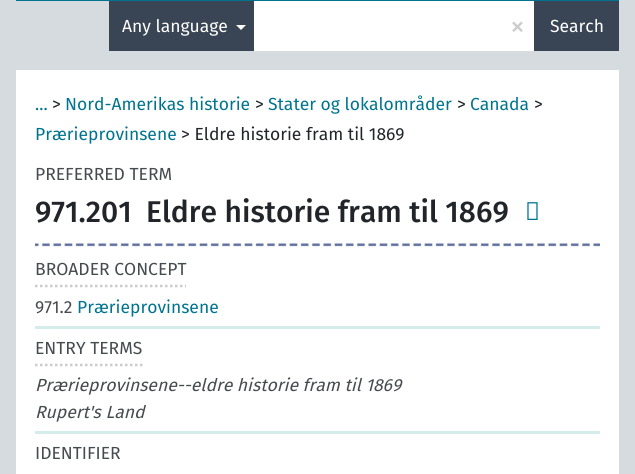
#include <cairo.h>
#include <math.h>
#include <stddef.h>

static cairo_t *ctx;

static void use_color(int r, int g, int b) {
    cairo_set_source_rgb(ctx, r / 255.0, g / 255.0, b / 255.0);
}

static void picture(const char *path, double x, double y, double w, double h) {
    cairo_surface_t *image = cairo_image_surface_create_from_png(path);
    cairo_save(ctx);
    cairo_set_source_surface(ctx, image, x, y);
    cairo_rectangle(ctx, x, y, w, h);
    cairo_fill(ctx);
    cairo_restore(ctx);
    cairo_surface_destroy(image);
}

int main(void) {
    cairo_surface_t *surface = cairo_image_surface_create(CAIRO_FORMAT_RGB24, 635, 474);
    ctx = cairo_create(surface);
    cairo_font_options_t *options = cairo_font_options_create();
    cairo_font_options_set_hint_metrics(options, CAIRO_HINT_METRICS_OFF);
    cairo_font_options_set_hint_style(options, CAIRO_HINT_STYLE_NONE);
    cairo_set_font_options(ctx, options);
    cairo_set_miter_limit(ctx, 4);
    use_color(213, 219, 222);
    cairo_paint(ctx);
    use_color(0, 116, 143);
    cairo_rectangle(ctx, 16, 0, 603, 1);
    cairo_fill(ctx);
    use_color(57, 69, 84);
    cairo_rectangle(ctx, 109, 1, 145, 50);
    cairo_fill(ctx);
    cairo_select_font_face(ctx, "Fira Sans", CAIRO_FONT_SLANT_NORMAL, CAIRO_FONT_WEIGHT_NORMAL);
    cairo_set_font_size(ctx, 17.5);
    use_color(255, 255, 255);
    cairo_move_to(ctx, 122, 32);
    cairo_show_text(ctx, "Any language");
    cairo_new_path(ctx);
    cairo_move_to(ctx, 236, 25);
    cairo_line_to(ctx, 246, 25);
    cairo_line_to(ctx, 241, 30);
    cairo_close_path(ctx);
    cairo_fill(ctx);
    cairo_rectangle(ctx, 254, 1, 280, 50);
    cairo_fill(ctx);
    cairo_set_font_size(ctx, 30);
    use_color(204, 204, 204);
    cairo_move_to(ctx, 510, 36);
    cairo_show_text(ctx, "×");
    use_color(57, 69, 84);
    cairo_rectangle(ctx, 534, 1, 85, 50);
    cairo_fill(ctx);
    cairo_set_font_size(ctx, 17.5);
    use_color(255, 255, 255);
    cairo_move_to(ctx, 550, 32);
    cairo_show_text(ctx, "Search");
    cairo_rectangle(ctx, 16, 70, 603, 404);
    cairo_fill(ctx);
    use_color(33, 37, 41);
    cairo_move_to(ctx, 52, 110);
    cairo_show_text(ctx, ">");
    use_color(0, 116, 143);
    cairo_move_to(ctx, 65, 110);
    cairo_show_text(ctx, "Nord-Amerikas historie");
    use_color(33, 37, 41);
    cairo_move_to(ctx, 255, 110);
    cairo_show_text(ctx, ">");
    use_color(0, 116, 143);
    cairo_move_to(ctx, 268, 110);
    cairo_show_text(ctx, "Stater og lokalområder");
    use_color(33, 37, 41);
    cairo_move_to(ctx, 457, 110);
    cairo_show_text(ctx, ">");
    use_color(0, 116, 143);
    cairo_move_to(ctx, 470, 110);
    cairo_show_text(ctx, "Canada");
    use_color(33, 37, 41);
    cairo_move_to(ctx, 534, 110);
    cairo_show_text(ctx, ">");
    use_color(0, 116, 143);
    cairo_move_to(ctx, 35, 110);
    cairo_show_text(ctx, "...");
    cairo_move_to(ctx, 35, 140);
    cairo_show_text(ctx, "Prærieprovinsene");
    use_color(33, 37, 41);
    cairo_move_to(ctx, 181, 140);
    cairo_show_text(ctx, "> Eldre historie fram til 1869");
    use_color(71, 75, 79);
    cairo_move_to(ctx, 35, 180);
    cairo_show_text(ctx, "PREFERRED TERM");
    cairo_select_font_face(ctx, "Fira Sans Medium", CAIRO_FONT_SLANT_NORMAL, CAIRO_FONT_WEIGHT_NORMAL);
    cairo_set_font_size(ctx, 30);
    use_color(33, 37, 41);
    cairo_move_to(ctx, 35, 222);
    cairo_show_text(ctx, "971.201");
    cairo_move_to(ctx, 146, 222);
    cairo_show_text(ctx, "Eldre historie fram til 1869");
    picture("img1.png", 527, 202, 11, 18);
    picture("img2.png", 35, 243, 565, 4);
    cairo_new_path(ctx);
    cairo_move_to(ctx, 35, 286);
    cairo_line_to(ctx, 186, 286);
    use_color(204, 204, 204);
    cairo_set_line_width(ctx, 2.5);
    cairo_set_dash(ctx, (double[]){2.5, 2.5}, 2, 0);
    cairo_stroke(ctx);
    cairo_select_font_face(ctx, "Fira Sans", CAIRO_FONT_SLANT_NORMAL, CAIRO_FONT_WEIGHT_NORMAL);
    cairo_set_font_size(ctx, 17.5);
    use_color(71, 75, 79);
    cairo_move_to(ctx, 35, 275);
    cairo_show_text(ctx, "BROADER CONCEPT");
    use_color(212, 237, 235);
    cairo_rectangle(ctx, 35, 326, 565, 3);
    cairo_fill(ctx);
    use_color(71, 75, 79);
    cairo_move_to(ctx, 35, 313);
    cairo_show_text(ctx, "971.2");
    use_color(0, 116, 143);
    cairo_move_to(ctx, 77, 313);
    cairo_show_text(ctx, "Prærieprovinsene");
    cairo_new_path(ctx);
    cairo_move_to(ctx, 35, 365);
    cairo_line_to(ctx, 142.5, 365);
    use_color(204, 204, 204);
    cairo_stroke(ctx);
    use_color(71, 75, 79);
    cairo_move_to(ctx, 35, 354);
    cairo_show_text(ctx, "ENTRY TERMS");
    use_color(212, 237, 235);
    cairo_rectangle(ctx, 35, 431, 565, 3);
    cairo_fill(ctx);
    cairo_select_font_face(ctx, "Fira Sans", CAIRO_FONT_SLANT_ITALIC, CAIRO_FONT_WEIGHT_NORMAL);
    use_color(71, 75, 79);
    cairo_move_to(ctx, 35, 391);
    cairo_show_text(ctx, "Prærieprovinsene--eldre historie fram til 1869");
    cairo_move_to(ctx, 35, 418);
    cairo_show_text(ctx, "Rupert's Land");
    cairo_select_font_face(ctx, "Fira Sans", CAIRO_FONT_SLANT_NORMAL, CAIRO_FONT_WEIGHT_NORMAL);
    cairo_move_to(ctx, 35, 459);
    cairo_show_text(ctx, "IDENTIFIER");
    cairo_surface_write_to_png(surface, "result.png");
    cairo_font_options_destroy(options);
    cairo_destroy(ctx);
    cairo_surface_destroy(surface);
    return 0;
}
